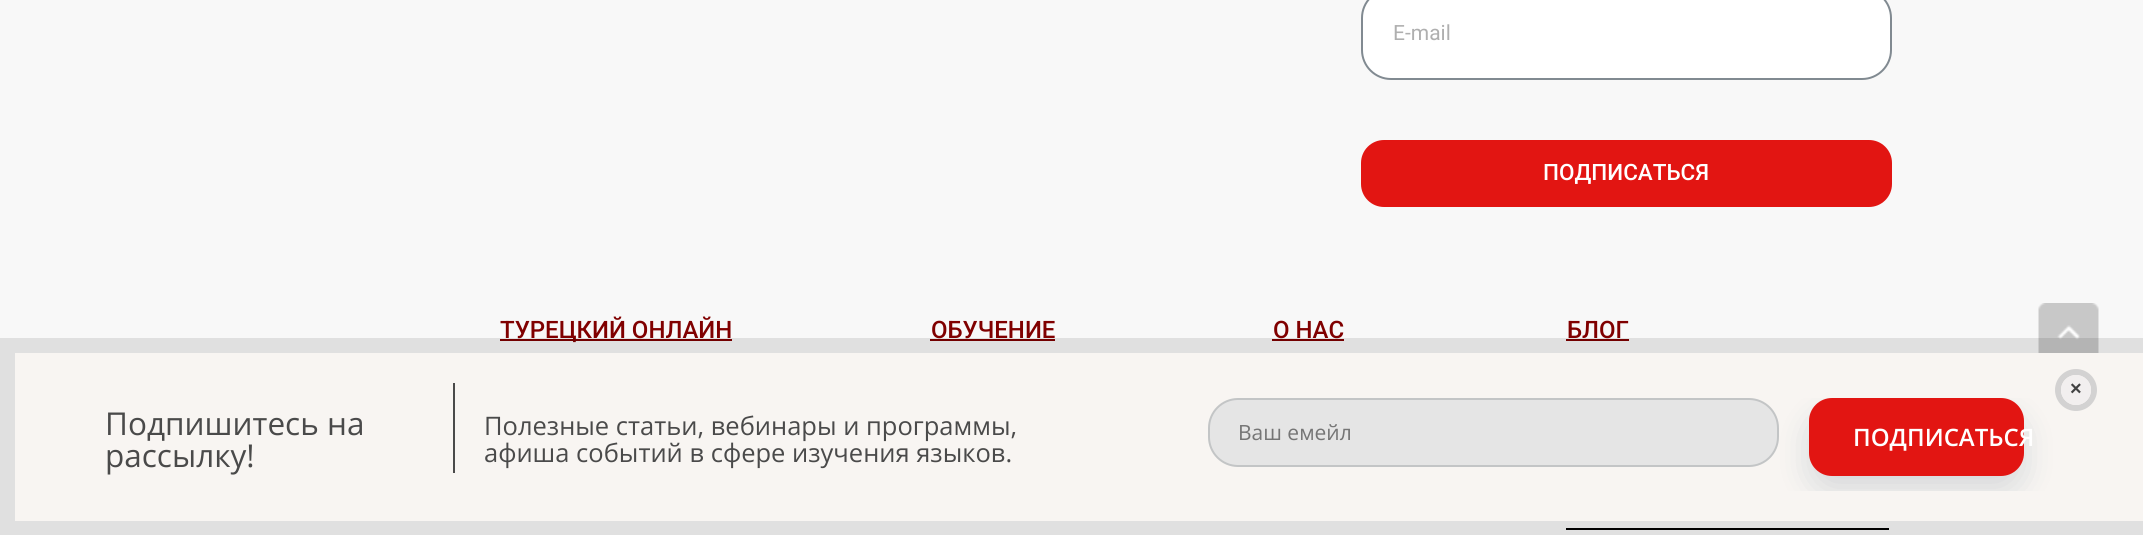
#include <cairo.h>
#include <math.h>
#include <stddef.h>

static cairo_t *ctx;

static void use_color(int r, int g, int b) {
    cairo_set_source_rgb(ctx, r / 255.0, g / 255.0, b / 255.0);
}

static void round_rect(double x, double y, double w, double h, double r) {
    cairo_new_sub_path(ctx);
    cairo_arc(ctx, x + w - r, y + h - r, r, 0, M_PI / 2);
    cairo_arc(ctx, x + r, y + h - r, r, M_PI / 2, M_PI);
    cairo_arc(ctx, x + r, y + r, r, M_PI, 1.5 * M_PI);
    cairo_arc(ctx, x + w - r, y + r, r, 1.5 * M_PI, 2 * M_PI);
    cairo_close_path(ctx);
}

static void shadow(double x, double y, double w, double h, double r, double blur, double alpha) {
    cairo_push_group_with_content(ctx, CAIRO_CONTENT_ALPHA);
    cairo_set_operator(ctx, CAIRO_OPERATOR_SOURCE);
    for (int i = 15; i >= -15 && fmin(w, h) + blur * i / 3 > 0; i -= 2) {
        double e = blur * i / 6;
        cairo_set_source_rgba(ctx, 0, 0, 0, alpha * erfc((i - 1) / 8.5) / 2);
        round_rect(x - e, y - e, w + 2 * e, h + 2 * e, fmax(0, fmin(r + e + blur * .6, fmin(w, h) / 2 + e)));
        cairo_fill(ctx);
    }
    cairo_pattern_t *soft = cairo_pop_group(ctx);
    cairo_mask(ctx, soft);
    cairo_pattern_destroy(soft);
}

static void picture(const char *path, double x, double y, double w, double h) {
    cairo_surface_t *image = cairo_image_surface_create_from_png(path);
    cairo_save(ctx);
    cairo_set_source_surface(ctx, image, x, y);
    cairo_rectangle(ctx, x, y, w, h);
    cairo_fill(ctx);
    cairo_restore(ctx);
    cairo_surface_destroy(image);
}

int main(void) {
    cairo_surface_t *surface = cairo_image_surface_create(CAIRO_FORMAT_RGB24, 2143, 535);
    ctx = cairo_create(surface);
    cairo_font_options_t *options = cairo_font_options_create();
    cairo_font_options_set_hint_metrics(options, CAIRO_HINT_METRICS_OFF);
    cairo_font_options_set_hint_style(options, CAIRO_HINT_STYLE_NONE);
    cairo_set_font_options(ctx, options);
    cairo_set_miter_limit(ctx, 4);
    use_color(248, 248, 248);
    cairo_paint(ctx);
    use_color(255, 255, 255);
    round_rect(1362, -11, 529, 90, 29);
    cairo_fill_preserve(ctx);
    use_color(129, 138, 145);
    cairo_stroke(ctx);
    cairo_select_font_face(ctx, "Roboto", CAIRO_FONT_SLANT_NORMAL, CAIRO_FONT_WEIGHT_NORMAL);
    cairo_set_font_size(ctx, 21);
    use_color(175, 175, 175);
    cairo_move_to(ctx, 1393, 40);
    cairo_show_text(ctx, "E-mail");
    use_color(226, 21, 18);
    round_rect(1361, 140, 531, 67, 23);
    cairo_fill(ctx);
    cairo_select_font_face(ctx, "Roboto Medium", CAIRO_FONT_SLANT_NORMAL, CAIRO_FONT_WEIGHT_NORMAL);
    cairo_set_font_size(ctx, 22.5);
    use_color(255, 255, 255);
    cairo_move_to(ctx, 1543, 180);
    cairo_show_text(ctx, "ПОДПИСАТЬСЯ");
    use_color(128, 0, 0);
    cairo_rectangle(ctx, 500, 339, 232, 2);
    cairo_fill(ctx);
    cairo_set_font_size(ctx, 24);
    cairo_move_to(ctx, 500, 338);
    cairo_show_text(ctx, "ТУРЕЦКИЙ ОНЛАЙН");
    cairo_move_to(ctx, 931, 338);
    cairo_show_text(ctx, "ОБУЧЕНИЕ");
    cairo_rectangle(ctx, 930, 339, 125, 2);
    cairo_fill(ctx);
    cairo_move_to(ctx, 1273, 338);
    cairo_show_text(ctx, "О НАС");
    cairo_rectangle(ctx, 1272, 339, 72, 2);
    cairo_fill(ctx);
    cairo_move_to(ctx, 1567, 338);
    cairo_show_text(ctx, "БЛОГ");
    cairo_rectangle(ctx, 1566, 339, 63, 2);
    cairo_fill(ctx);
    use_color(0, 0, 0);
    cairo_rectangle(ctx, 1566, 528, 323, 2);
    cairo_fill(ctx);
    picture("img1.png", 2038, 303, 61, 50);
    cairo_rectangle(ctx, 7.5, 345.5, 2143, 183);
    cairo_set_source_rgba(ctx, 0, 0, 0, 0.1);
    cairo_set_line_width(ctx, 15);
    cairo_stroke(ctx);
    use_color(248, 245, 242);
    cairo_rectangle(ctx, 15, 353, 2128, 168);
    cairo_fill(ctx);
    use_color(229, 229, 229);
    round_rect(1209, 399, 569, 67, 29);
    cairo_fill_preserve(ctx);
    use_color(195, 197, 198);
    cairo_set_line_width(ctx, 2);
    cairo_stroke(ctx);
    cairo_save(ctx);
    cairo_rectangle(ctx, 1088, 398, 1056, 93);
    cairo_clip(ctx);
    use_color(9, 44, 80);
    shadow(1809, 414, 215, 78, 23, 16, 0.14);
    cairo_restore(ctx);
    cairo_arc(ctx, 2076, 390, 18, 0, 2 * M_PI);
    use_color(211, 210, 210);
    cairo_set_line_width(ctx, 6);
    cairo_stroke(ctx);
    use_color(242, 239, 239);
    cairo_arc(ctx, 2076, 390, 15, 0, 2 * M_PI);
    cairo_fill(ctx);
    cairo_select_font_face(ctx, "Liberation Sans", CAIRO_FONT_SLANT_NORMAL, CAIRO_FONT_WEIGHT_BOLD);
    cairo_set_font_size(ctx, 20);
    use_color(66, 66, 66);
    cairo_move_to(ctx, 2070, 395);
    cairo_show_text(ctx, "×");
    cairo_select_font_face(ctx, "Open Sans", CAIRO_FONT_SLANT_NORMAL, CAIRO_FONT_WEIGHT_NORMAL);
    cairo_set_font_size(ctx, 31.5);
    use_color(74, 74, 74);
    cairo_move_to(ctx, 105, 435);
    cairo_show_text(ctx, "Подпишитесь на");
    cairo_move_to(ctx, 105, 467);
    cairo_show_text(ctx, "рассылку!");
    cairo_rectangle(ctx, 453, 383, 2, 90);
    cairo_fill(ctx);
    cairo_set_font_size(ctx, 25.5);
    cairo_move_to(ctx, 484, 435);
    cairo_show_text(ctx, "Полезные статьи, вебинары и программы,");
    cairo_move_to(ctx, 484, 462);
    cairo_show_text(ctx, "афиша событий в сфере изучения языков.");
    cairo_set_font_size(ctx, 21);
    use_color(117, 117, 117);
    cairo_move_to(ctx, 1238, 440);
    cairo_show_text(ctx, "Ваш емейл");
    use_color(226, 21, 18);
    round_rect(1809, 398, 215, 78, 23);
    cairo_fill(ctx);
    cairo_select_font_face(ctx, "Open Sans SemiBold", CAIRO_FONT_SLANT_NORMAL, CAIRO_FONT_WEIGHT_NORMAL);
    cairo_set_font_size(ctx, 24);
    use_color(255, 255, 255);
    cairo_move_to(ctx, 1853, 446);
    cairo_show_text(ctx, "ПОДПИСАТЬСЯ");
    cairo_surface_write_to_png(surface, "result.png");
    cairo_font_options_destroy(options);
    cairo_destroy(ctx);
    cairo_surface_destroy(surface);
    return 0;
}
